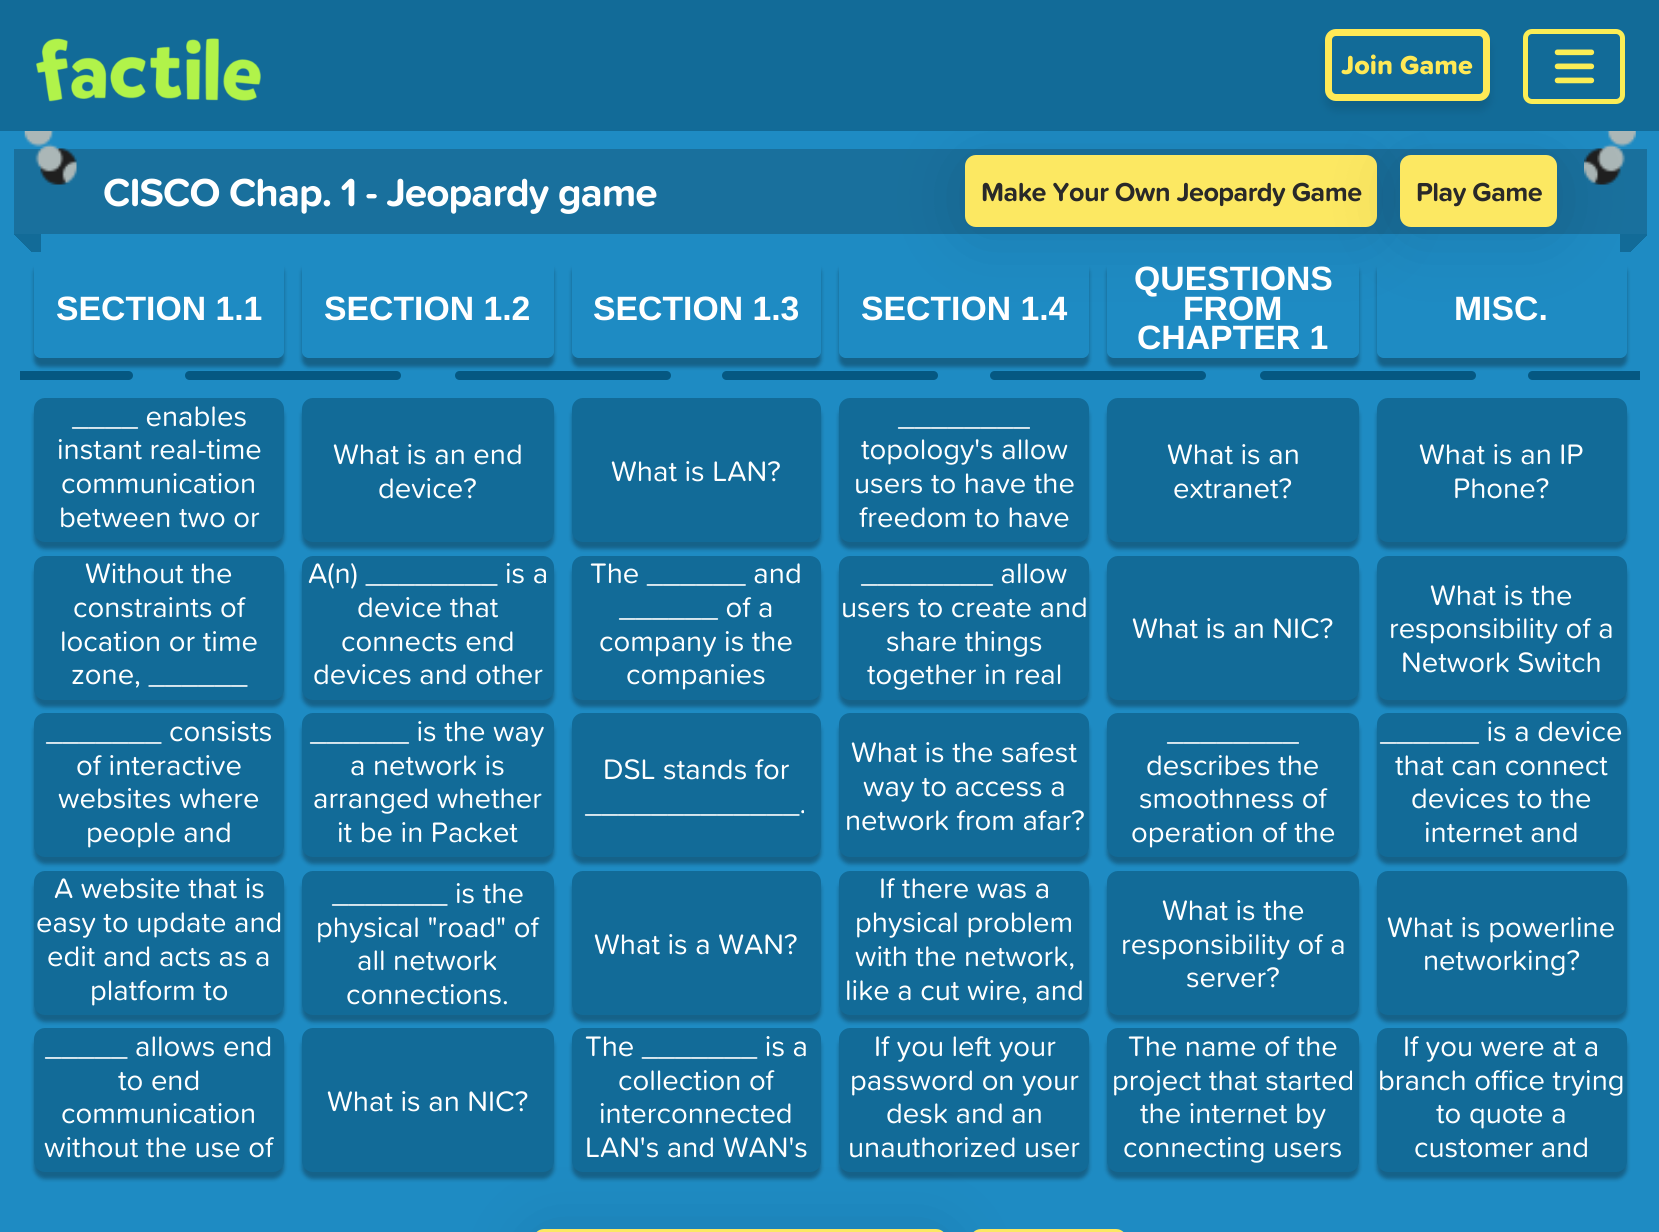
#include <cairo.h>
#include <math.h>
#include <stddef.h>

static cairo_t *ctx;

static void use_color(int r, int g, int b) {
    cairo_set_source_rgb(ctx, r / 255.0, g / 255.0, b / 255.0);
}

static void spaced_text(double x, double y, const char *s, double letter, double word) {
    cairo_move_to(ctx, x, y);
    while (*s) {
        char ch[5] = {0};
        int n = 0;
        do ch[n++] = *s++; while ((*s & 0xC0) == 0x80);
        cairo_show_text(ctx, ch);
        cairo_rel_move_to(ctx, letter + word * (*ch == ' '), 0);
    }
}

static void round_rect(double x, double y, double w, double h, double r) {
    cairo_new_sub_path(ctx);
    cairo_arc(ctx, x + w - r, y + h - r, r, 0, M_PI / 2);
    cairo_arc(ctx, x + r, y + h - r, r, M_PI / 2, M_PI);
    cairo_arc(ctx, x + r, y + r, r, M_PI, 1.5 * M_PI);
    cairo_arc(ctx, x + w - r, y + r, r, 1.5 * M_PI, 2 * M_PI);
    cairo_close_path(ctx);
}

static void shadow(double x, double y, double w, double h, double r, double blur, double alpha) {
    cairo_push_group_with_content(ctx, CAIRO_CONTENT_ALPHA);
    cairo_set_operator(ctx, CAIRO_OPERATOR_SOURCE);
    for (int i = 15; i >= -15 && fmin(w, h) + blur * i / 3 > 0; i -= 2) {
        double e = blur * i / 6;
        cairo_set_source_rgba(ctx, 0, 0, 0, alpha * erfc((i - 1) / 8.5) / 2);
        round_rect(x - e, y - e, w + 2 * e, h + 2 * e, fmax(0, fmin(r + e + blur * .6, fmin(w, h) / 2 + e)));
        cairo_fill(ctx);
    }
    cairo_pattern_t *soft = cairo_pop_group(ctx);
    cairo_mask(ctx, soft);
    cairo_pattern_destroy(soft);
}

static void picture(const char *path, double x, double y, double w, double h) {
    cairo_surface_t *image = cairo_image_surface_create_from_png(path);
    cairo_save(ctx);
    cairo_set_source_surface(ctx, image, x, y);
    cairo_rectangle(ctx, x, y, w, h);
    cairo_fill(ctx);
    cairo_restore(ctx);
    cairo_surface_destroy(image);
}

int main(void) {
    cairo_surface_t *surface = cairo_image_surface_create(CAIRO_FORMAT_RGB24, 1659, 1232);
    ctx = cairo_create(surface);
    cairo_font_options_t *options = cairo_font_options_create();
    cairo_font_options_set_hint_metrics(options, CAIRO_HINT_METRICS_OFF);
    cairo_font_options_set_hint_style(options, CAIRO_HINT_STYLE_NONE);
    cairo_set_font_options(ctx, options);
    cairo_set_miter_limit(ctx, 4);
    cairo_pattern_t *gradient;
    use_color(30, 139, 195);
    cairo_paint(ctx);
    use_color(25, 112, 157);
    cairo_rectangle(ctx, 14, 149, 1633, 85);
    cairo_fill(ctx);
    use_color(0, 0, 0);
    shadow(965, 162, 412, 72, 11, 37, 0.12);
    picture("img4.png", 1584, 131, 52, 54);
    use_color(252, 232, 98);
    round_rect(965, 155, 412, 72, 11);
    cairo_fill(ctx);
    gradient = cairo_pattern_create_linear(1648, 261, 1621, 234);
    cairo_pattern_add_color_stop_rgba(gradient, 0.49, 0.118, 0.545, 0.765, 1);
    cairo_pattern_add_color_stop_rgba(gradient, 0.5, 0.071, 0.42, 0.596, 1);
    cairo_set_source(ctx, gradient);
    cairo_pattern_destroy(gradient);
    cairo_rectangle(ctx, 1620, 234, 27, 27);
    cairo_fill(ctx);
    use_color(30, 139, 195);
    cairo_rectangle(ctx, 1620, 252, 10, 9);
    cairo_fill(ctx);
    use_color(0, 0, 0);
    shadow(1400, 162, 157, 72, 11, 37, 0.12);
    use_color(18, 107, 152);
    cairo_rectangle(ctx, 0, 0, 1659, 131);
    cairo_fill(ctx);
    picture("img1.png", 36, 38, 225, 64);
    cairo_save(ctx);
    cairo_set_fill_rule(ctx, CAIRO_FILL_RULE_EVEN_ODD);
    cairo_new_path(ctx);
    cairo_move_to(ctx, 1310, 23);
    cairo_line_to(ctx, 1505, 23);
    cairo_line_to(ctx, 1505, 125);
    cairo_line_to(ctx, 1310, 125);
    cairo_close_path(ctx);
    cairo_move_to(ctx, 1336, 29);
    cairo_line_to(ctx, 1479, 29);
    cairo_curve_to(ctx, 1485, 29, 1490, 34, 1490, 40);
    cairo_line_to(ctx, 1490, 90);
    cairo_curve_to(ctx, 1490, 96, 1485, 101, 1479, 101);
    cairo_line_to(ctx, 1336, 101);
    cairo_curve_to(ctx, 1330, 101, 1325, 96, 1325, 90);
    cairo_line_to(ctx, 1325, 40);
    cairo_curve_to(ctx, 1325, 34, 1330, 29, 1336, 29);
    cairo_close_path(ctx);
    cairo_clip(ctx);
    use_color(0, 0, 0);
    shadow(1325, 38, 165, 72, 11, 4.5, 0.11);
    cairo_restore(ctx);
    round_rect(1328.5, 32.5, 158, 65, 7.5);
    use_color(255, 233, 86);
    cairo_set_line_width(ctx, 7);
    cairo_stroke(ctx);
    cairo_select_font_face(ctx, "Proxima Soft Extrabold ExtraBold", CAIRO_FONT_SLANT_NORMAL, CAIRO_FONT_WEIGHT_NORMAL);
    cairo_set_font_size(ctx, 27);
    cairo_move_to(ctx, 1341, 74);
    cairo_show_text(ctx, "Join Game");
    round_rect(1525.5, 31.5, 97, 70, 6.5);
    use_color(251, 237, 86);
    cairo_set_line_width(ctx, 5);
    cairo_stroke(ctx);
    picture("img2.png", 1554, 49, 41, 35);
    picture("img3.png", 24, 131, 53, 54);
    cairo_select_font_face(ctx, "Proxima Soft", CAIRO_FONT_SLANT_NORMAL, CAIRO_FONT_WEIGHT_BOLD);
    cairo_set_font_size(ctx, 40.5);
    use_color(255, 255, 255);
    spaced_text(103, 206, "CISCO Chap. 1 - Jeopardy game", -0.95, 0);
    cairo_set_font_size(ctx, 27);
    use_color(41, 41, 41);
    spaced_text(981, 201, "Make Your Own Jeopardy Game", -0.55, 0);
    use_color(252, 232, 98);
    round_rect(1400, 155, 157, 72, 11);
    cairo_fill(ctx);
    use_color(41, 41, 41);
    spaced_text(1416, 201, "Play Game", -0.55, 0);
    gradient = cairo_pattern_create_linear(14, 261, 41, 234);
    cairo_pattern_add_color_stop_rgba(gradient, 0.49, 0.118, 0.545, 0.765, 1);
    cairo_pattern_add_color_stop_rgba(gradient, 0.5, 0.071, 0.42, 0.596, 1);
    cairo_set_source(ctx, gradient);
    cairo_pattern_destroy(gradient);
    cairo_rectangle(ctx, 14, 234, 27, 27);
    cairo_fill(ctx);
    use_color(30, 139, 195);
    cairo_rectangle(ctx, 32, 252, 9, 9);
    cairo_fill(ctx);
    use_color(5, 88, 130);
    cairo_new_path(ctx);
    cairo_move_to(ctx, 20, 371);
    cairo_line_to(ctx, 128.5, 371);
    cairo_curve_to(ctx, 131, 371, 133, 373, 133, 375.5);
    cairo_curve_to(ctx, 133, 378, 131, 380, 128.5, 380);
    cairo_line_to(ctx, 20, 380);
    cairo_close_path(ctx);
    cairo_fill(ctx);
    cairo_save(ctx);
    cairo_set_fill_rule(ctx, CAIRO_FILL_RULE_EVEN_ODD);
    cairo_new_path(ctx);
    cairo_move_to(ctx, 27, 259);
    cairo_line_to(ctx, 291, 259);
    cairo_line_to(ctx, 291, 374);
    cairo_line_to(ctx, 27, 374);
    cairo_close_path(ctx);
    cairo_move_to(ctx, 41, 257);
    cairo_line_to(ctx, 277, 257);
    cairo_curve_to(ctx, 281, 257, 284, 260, 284, 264);
    cairo_line_to(ctx, 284, 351);
    cairo_curve_to(ctx, 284, 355, 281, 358, 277, 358);
    cairo_line_to(ctx, 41, 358);
    cairo_curve_to(ctx, 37, 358, 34, 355, 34, 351);
    cairo_line_to(ctx, 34, 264);
    cairo_curve_to(ctx, 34, 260, 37, 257, 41, 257);
    cairo_close_path(ctx);
    cairo_clip(ctx);
    use_color(0, 0, 0);
    shadow(34, 266, 250, 101, 7, 2, 0.3);
    cairo_restore(ctx);
    cairo_select_font_face(ctx, "Liberation Sans", CAIRO_FONT_SLANT_NORMAL, CAIRO_FONT_WEIGHT_BOLD);
    cairo_set_font_size(ctx, 33.75);
    use_color(255, 255, 255);
    cairo_move_to(ctx, 56, 320);
    cairo_show_text(ctx, "SECTION 1.1");
    use_color(5, 88, 130);
    cairo_new_path(ctx);
    cairo_move_to(ctx, 189.5, 371);
    cairo_line_to(ctx, 297, 371);
    cairo_line_to(ctx, 297, 380);
    cairo_line_to(ctx, 189.5, 380);
    cairo_curve_to(ctx, 187, 380, 185, 378, 185, 375.5);
    cairo_curve_to(ctx, 185, 373, 187, 371, 189.5, 371);
    cairo_close_path(ctx);
    cairo_fill(ctx);
    use_color(0, 0, 0);
    shadow(34, 405, 250, 144, 11, 2, 0.3);
    use_color(18, 107, 152);
    round_rect(34, 398, 250, 144, 11);
    cairo_fill(ctx);
    cairo_select_font_face(ctx, "Proxima Soft", CAIRO_FONT_SLANT_NORMAL, CAIRO_FONT_WEIGHT_NORMAL);
    cairo_set_font_size(ctx, 29.25);
    use_color(255, 255, 255);
    cairo_move_to(ctx, 72, 426);
    cairo_show_text(ctx, "____ enables");
    cairo_move_to(ctx, 57, 459);
    cairo_show_text(ctx, "instant real-time");
    cairo_move_to(ctx, 61, 493);
    cairo_show_text(ctx, "communication");
    cairo_move_to(ctx, 59, 527);
    cairo_show_text(ctx, "between two or");
    use_color(0, 0, 0);
    shadow(34, 563, 250, 144, 11, 2, 0.3);
    use_color(18, 107, 152);
    round_rect(34, 556, 250, 144, 11);
    cairo_fill(ctx);
    use_color(255, 255, 255);
    cairo_move_to(ctx, 85, 583);
    cairo_show_text(ctx, "Without the");
    cairo_move_to(ctx, 73, 617);
    cairo_show_text(ctx, "constraints of");
    cairo_move_to(ctx, 60, 651);
    cairo_show_text(ctx, "location or time");
    cairo_move_to(ctx, 71, 684);
    cairo_show_text(ctx, "zone, ______");
    use_color(0, 0, 0);
    shadow(34, 720, 250, 144, 11, 2, 0.3);
    use_color(18, 107, 152);
    round_rect(34, 713, 250, 144, 11);
    cairo_fill(ctx);
    use_color(255, 255, 255);
    cairo_move_to(ctx, 46, 741);
    cairo_show_text(ctx, "_______ consists");
    cairo_move_to(ctx, 76, 775);
    cairo_show_text(ctx, "of interactive");
    cairo_move_to(ctx, 58, 808);
    cairo_show_text(ctx, "websites where");
    cairo_move_to(ctx, 86, 842);
    cairo_show_text(ctx, "people and");
    use_color(0, 0, 0);
    shadow(34, 878, 250, 144, 11, 2, 0.3);
    use_color(18, 107, 152);
    round_rect(34, 871, 250, 144, 11);
    cairo_fill(ctx);
    use_color(255, 255, 255);
    cairo_move_to(ctx, 54, 898);
    cairo_show_text(ctx, "A website that is");
    cairo_move_to(ctx, 36, 932);
    cairo_show_text(ctx, "easy to update and");
    cairo_move_to(ctx, 47, 966);
    cairo_show_text(ctx, "edit and acts as a");
    cairo_move_to(ctx, 90, 1000);
    cairo_show_text(ctx, "platform to");
    use_color(0, 0, 0);
    shadow(34, 1035, 250, 144, 11, 2, 0.3);
    use_color(18, 107, 152);
    round_rect(34, 1028, 250, 144, 11);
    cairo_fill(ctx);
    use_color(255, 255, 255);
    cairo_move_to(ctx, 45, 1056);
    cairo_show_text(ctx, "_____ allows end");
    cairo_move_to(ctx, 118, 1090);
    cairo_show_text(ctx, "to end");
    cairo_move_to(ctx, 61, 1123);
    cairo_show_text(ctx, "communication");
    cairo_move_to(ctx, 44, 1157);
    cairo_show_text(ctx, "without the use of");
    use_color(5, 88, 130);
    cairo_new_path(ctx);
    cairo_move_to(ctx, 288, 371);
    cairo_line_to(ctx, 396.5, 371);
    cairo_curve_to(ctx, 399, 371, 401, 373, 401, 375.5);
    cairo_curve_to(ctx, 401, 378, 399, 380, 396.5, 380);
    cairo_line_to(ctx, 288, 380);
    cairo_close_path(ctx);
    cairo_fill(ctx);
    cairo_save(ctx);
    cairo_set_fill_rule(ctx, CAIRO_FILL_RULE_EVEN_ODD);
    cairo_new_path(ctx);
    cairo_move_to(ctx, 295, 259);
    cairo_line_to(ctx, 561, 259);
    cairo_line_to(ctx, 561, 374);
    cairo_line_to(ctx, 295, 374);
    cairo_close_path(ctx);
    cairo_move_to(ctx, 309, 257);
    cairo_line_to(ctx, 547, 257);
    cairo_curve_to(ctx, 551, 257, 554, 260, 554, 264);
    cairo_line_to(ctx, 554, 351);
    cairo_curve_to(ctx, 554, 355, 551, 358, 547, 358);
    cairo_line_to(ctx, 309, 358);
    cairo_curve_to(ctx, 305, 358, 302, 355, 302, 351);
    cairo_line_to(ctx, 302, 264);
    cairo_curve_to(ctx, 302, 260, 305, 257, 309, 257);
    cairo_close_path(ctx);
    cairo_clip(ctx);
    use_color(0, 0, 0);
    shadow(302, 266, 252, 101, 7, 2, 0.3);
    cairo_restore(ctx);
    cairo_select_font_face(ctx, "Liberation Sans", CAIRO_FONT_SLANT_NORMAL, CAIRO_FONT_WEIGHT_BOLD);
    cairo_set_font_size(ctx, 33.75);
    use_color(255, 255, 255);
    cairo_move_to(ctx, 324, 320);
    cairo_show_text(ctx, "SECTION 1.2");
    use_color(5, 88, 130);
    cairo_new_path(ctx);
    cairo_move_to(ctx, 459.5, 371);
    cairo_line_to(ctx, 567, 371);
    cairo_line_to(ctx, 567, 380);
    cairo_line_to(ctx, 459.5, 380);
    cairo_curve_to(ctx, 457, 380, 455, 378, 455, 375.5);
    cairo_curve_to(ctx, 455, 373, 457, 371, 459.5, 371);
    cairo_close_path(ctx);
    cairo_fill(ctx);
    use_color(0, 0, 0);
    shadow(302, 405, 252, 144, 11, 2, 0.3);
    use_color(18, 107, 152);
    round_rect(302, 398, 252, 144, 11);
    cairo_fill(ctx);
    cairo_select_font_face(ctx, "Proxima Soft", CAIRO_FONT_SLANT_NORMAL, CAIRO_FONT_WEIGHT_NORMAL);
    cairo_set_font_size(ctx, 29.25);
    use_color(255, 255, 255);
    cairo_move_to(ctx, 333, 464);
    cairo_show_text(ctx, "What is an end");
    cairo_move_to(ctx, 378, 498);
    cairo_show_text(ctx, "device?");
    use_color(0, 0, 0);
    shadow(302, 563, 252, 144, 11, 2, 0.3);
    use_color(18, 107, 152);
    round_rect(302, 556, 252, 144, 11);
    cairo_fill(ctx);
    use_color(255, 255, 255);
    cairo_move_to(ctx, 308, 583);
    cairo_show_text(ctx, "A(n) ________ is a");
    cairo_move_to(ctx, 357, 617);
    cairo_show_text(ctx, "device that");
    cairo_move_to(ctx, 341, 651);
    cairo_show_text(ctx, "connects end");
    cairo_move_to(ctx, 313, 684);
    cairo_show_text(ctx, "devices and other");
    use_color(0, 0, 0);
    shadow(302, 720, 252, 144, 11, 2, 0.3);
    use_color(18, 107, 152);
    round_rect(302, 713, 252, 144, 11);
    cairo_fill(ctx);
    use_color(255, 255, 255);
    cairo_move_to(ctx, 310, 741);
    cairo_show_text(ctx, "______ is the way");
    cairo_move_to(ctx, 350, 775);
    cairo_show_text(ctx, "a network is");
    cairo_move_to(ctx, 313, 808);
    cairo_show_text(ctx, "arranged whether");
    cairo_move_to(ctx, 337, 842);
    cairo_show_text(ctx, "it be in Packet");
    use_color(0, 0, 0);
    shadow(302, 878, 252, 144, 11, 2, 0.3);
    use_color(18, 107, 152);
    round_rect(302, 871, 252, 144, 11);
    cairo_fill(ctx);
    use_color(255, 255, 255);
    cairo_move_to(ctx, 332, 903);
    cairo_show_text(ctx, "_______ is the");
    cairo_move_to(ctx, 316, 937);
    cairo_show_text(ctx, "physical \"road\" of");
    cairo_move_to(ctx, 357, 970);
    cairo_show_text(ctx, "all network");
    cairo_move_to(ctx, 346, 1004);
    cairo_show_text(ctx, "connections.");
    use_color(0, 0, 0);
    shadow(302, 1035, 252, 144, 11, 2, 0.3);
    shadow(533, 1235, 414, 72, 11, 37, 0.12);
    use_color(18, 107, 152);
    round_rect(302, 1028, 252, 144, 11);
    cairo_fill(ctx);
    use_color(255, 255, 255);
    cairo_move_to(ctx, 327, 1111);
    cairo_show_text(ctx, "What is an NIC?");
    use_color(5, 88, 130);
    cairo_new_path(ctx);
    cairo_move_to(ctx, 558, 371);
    cairo_line_to(ctx, 666.5, 371);
    cairo_curve_to(ctx, 669, 371, 671, 373, 671, 375.5);
    cairo_curve_to(ctx, 671, 378, 669, 380, 666.5, 380);
    cairo_line_to(ctx, 558, 380);
    cairo_close_path(ctx);
    cairo_fill(ctx);
    cairo_save(ctx);
    cairo_set_fill_rule(ctx, CAIRO_FILL_RULE_EVEN_ODD);
    cairo_new_path(ctx);
    cairo_move_to(ctx, 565, 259);
    cairo_line_to(ctx, 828, 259);
    cairo_line_to(ctx, 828, 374);
    cairo_line_to(ctx, 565, 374);
    cairo_close_path(ctx);
    cairo_move_to(ctx, 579, 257);
    cairo_line_to(ctx, 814, 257);
    cairo_curve_to(ctx, 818, 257, 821, 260, 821, 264);
    cairo_line_to(ctx, 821, 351);
    cairo_curve_to(ctx, 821, 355, 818, 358, 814, 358);
    cairo_line_to(ctx, 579, 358);
    cairo_curve_to(ctx, 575, 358, 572, 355, 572, 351);
    cairo_line_to(ctx, 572, 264);
    cairo_curve_to(ctx, 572, 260, 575, 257, 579, 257);
    cairo_close_path(ctx);
    cairo_clip(ctx);
    use_color(0, 0, 0);
    shadow(572, 266, 249, 101, 7, 2, 0.3);
    cairo_restore(ctx);
    cairo_select_font_face(ctx, "Liberation Sans", CAIRO_FONT_SLANT_NORMAL, CAIRO_FONT_WEIGHT_BOLD);
    cairo_set_font_size(ctx, 33.75);
    use_color(255, 255, 255);
    cairo_move_to(ctx, 593, 320);
    cairo_show_text(ctx, "SECTION 1.3");
    use_color(5, 88, 130);
    cairo_new_path(ctx);
    cairo_move_to(ctx, 726.5, 371);
    cairo_line_to(ctx, 835, 371);
    cairo_line_to(ctx, 835, 380);
    cairo_line_to(ctx, 726.5, 380);
    cairo_curve_to(ctx, 724, 380, 722, 378, 722, 375.5);
    cairo_curve_to(ctx, 722, 373, 724, 371, 726.5, 371);
    cairo_close_path(ctx);
    cairo_fill(ctx);
    use_color(0, 0, 0);
    shadow(572, 405, 249, 144, 11, 2, 0.3);
    use_color(18, 107, 152);
    round_rect(572, 398, 249, 144, 11);
    cairo_fill(ctx);
    cairo_select_font_face(ctx, "Proxima Soft", CAIRO_FONT_SLANT_NORMAL, CAIRO_FONT_WEIGHT_NORMAL);
    cairo_set_font_size(ctx, 29.25);
    use_color(255, 255, 255);
    cairo_move_to(ctx, 611, 481);
    cairo_show_text(ctx, "What is LAN?");
    use_color(0, 0, 0);
    shadow(572, 563, 249, 144, 11, 2, 0.3);
    use_color(18, 107, 152);
    round_rect(572, 556, 249, 144, 11);
    cairo_fill(ctx);
    use_color(255, 255, 255);
    cairo_move_to(ctx, 590, 583);
    cairo_show_text(ctx, "The ______ and");
    cairo_move_to(ctx, 619, 617);
    cairo_show_text(ctx, "______ of a");
    cairo_move_to(ctx, 599, 651);
    cairo_show_text(ctx, "company is the");
    cairo_move_to(ctx, 626, 684);
    cairo_show_text(ctx, "companies");
    use_color(0, 0, 0);
    shadow(572, 720, 249, 144, 11, 2, 0.3);
    use_color(18, 107, 152);
    round_rect(572, 713, 249, 144, 11);
    cairo_fill(ctx);
    use_color(255, 255, 255);
    cairo_move_to(ctx, 603, 779);
    cairo_show_text(ctx, "DSL stands for");
    cairo_move_to(ctx, 585, 813);
    cairo_show_text(ctx, "_____________.");
    use_color(0, 0, 0);
    shadow(572, 878, 249, 144, 11, 2, 0.3);
    use_color(18, 107, 152);
    round_rect(572, 871, 249, 144, 11);
    cairo_fill(ctx);
    use_color(255, 255, 255);
    cairo_move_to(ctx, 594, 954);
    cairo_show_text(ctx, "What is a WAN?");
    use_color(0, 0, 0);
    shadow(572, 1035, 249, 144, 11, 2, 0.3);
    use_color(18, 107, 152);
    round_rect(572, 1028, 249, 144, 11);
    cairo_fill(ctx);
    use_color(255, 255, 255);
    cairo_move_to(ctx, 585, 1056);
    cairo_show_text(ctx, "The _______ is a");
    cairo_move_to(ctx, 618, 1090);
    cairo_show_text(ctx, "collection of");
    cairo_move_to(ctx, 599, 1123);
    cairo_show_text(ctx, "interconnected");
    cairo_move_to(ctx, 585, 1157);
    cairo_show_text(ctx, "LAN's and WAN's");
    use_color(5, 88, 130);
    cairo_new_path(ctx);
    cairo_move_to(ctx, 826, 371);
    cairo_line_to(ctx, 933.5, 371);
    cairo_curve_to(ctx, 936, 371, 938, 373, 938, 375.5);
    cairo_curve_to(ctx, 938, 378, 936, 380, 933.5, 380);
    cairo_line_to(ctx, 826, 380);
    cairo_close_path(ctx);
    cairo_fill(ctx);
    cairo_save(ctx);
    cairo_set_fill_rule(ctx, CAIRO_FILL_RULE_EVEN_ODD);
    cairo_new_path(ctx);
    cairo_move_to(ctx, 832, 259);
    cairo_line_to(ctx, 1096, 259);
    cairo_line_to(ctx, 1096, 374);
    cairo_line_to(ctx, 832, 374);
    cairo_close_path(ctx);
    cairo_move_to(ctx, 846, 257);
    cairo_line_to(ctx, 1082, 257);
    cairo_curve_to(ctx, 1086, 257, 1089, 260, 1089, 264);
    cairo_line_to(ctx, 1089, 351);
    cairo_curve_to(ctx, 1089, 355, 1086, 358, 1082, 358);
    cairo_line_to(ctx, 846, 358);
    cairo_curve_to(ctx, 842, 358, 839, 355, 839, 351);
    cairo_line_to(ctx, 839, 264);
    cairo_curve_to(ctx, 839, 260, 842, 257, 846, 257);
    cairo_close_path(ctx);
    cairo_clip(ctx);
    use_color(0, 0, 0);
    shadow(839, 266, 250, 101, 7, 2, 0.3);
    cairo_restore(ctx);
    cairo_select_font_face(ctx, "Liberation Sans", CAIRO_FONT_SLANT_NORMAL, CAIRO_FONT_WEIGHT_BOLD);
    cairo_set_font_size(ctx, 33.75);
    use_color(255, 255, 255);
    cairo_move_to(ctx, 861, 320);
    cairo_show_text(ctx, "SECTION 1.4");
    use_color(5, 88, 130);
    cairo_new_path(ctx);
    cairo_move_to(ctx, 994.5, 371);
    cairo_line_to(ctx, 1103, 371);
    cairo_line_to(ctx, 1103, 380);
    cairo_line_to(ctx, 994.5, 380);
    cairo_curve_to(ctx, 992, 380, 990, 378, 990, 375.5);
    cairo_curve_to(ctx, 990, 373, 992, 371, 994.5, 371);
    cairo_close_path(ctx);
    cairo_fill(ctx);
    use_color(0, 0, 0);
    shadow(839, 405, 250, 144, 11, 2, 0.3);
    use_color(18, 107, 152);
    round_rect(839, 398, 250, 144, 11);
    cairo_fill(ctx);
    cairo_select_font_face(ctx, "Proxima Soft", CAIRO_FONT_SLANT_NORMAL, CAIRO_FONT_WEIGHT_NORMAL);
    cairo_set_font_size(ctx, 29.25);
    use_color(255, 255, 255);
    cairo_move_to(ctx, 898, 426);
    cairo_show_text(ctx, "________");
    cairo_move_to(ctx, 861, 459);
    cairo_show_text(ctx, "topology's allow");
    cairo_move_to(ctx, 854, 493);
    cairo_show_text(ctx, "users to have the");
    cairo_move_to(ctx, 859, 527);
    cairo_show_text(ctx, "freedom to have");
    use_color(0, 0, 0);
    shadow(839, 563, 250, 144, 11, 2, 0.3);
    use_color(18, 107, 152);
    round_rect(839, 556, 250, 144, 11);
    cairo_fill(ctx);
    use_color(255, 255, 255);
    cairo_move_to(ctx, 861, 583);
    cairo_show_text(ctx, "________ allow");
    cairo_move_to(ctx, 841, 617);
    cairo_show_text(ctx, "users to create and");
    cairo_move_to(ctx, 886, 651);
    cairo_show_text(ctx, "share things");
    cairo_move_to(ctx, 867, 684);
    cairo_show_text(ctx, "together in real");
    use_color(0, 0, 0);
    shadow(839, 720, 250, 144, 11, 2, 0.3);
    use_color(18, 107, 152);
    round_rect(839, 713, 250, 144, 11);
    cairo_fill(ctx);
    use_color(255, 255, 255);
    cairo_move_to(ctx, 851, 762);
    cairo_show_text(ctx, "What is the safest");
    cairo_move_to(ctx, 863, 796);
    cairo_show_text(ctx, "way to access a");
    cairo_move_to(ctx, 845, 830);
    cairo_show_text(ctx, "network from afar?");
    use_color(0, 0, 0);
    shadow(839, 878, 250, 144, 11, 2, 0.3);
    use_color(18, 107, 152);
    round_rect(839, 871, 250, 144, 11);
    cairo_fill(ctx);
    use_color(255, 255, 255);
    cairo_move_to(ctx, 879, 898);
    cairo_show_text(ctx, "If there was a");
    cairo_move_to(ctx, 855, 932);
    cairo_show_text(ctx, "physical problem");
    cairo_move_to(ctx, 855, 966);
    cairo_show_text(ctx, "with the network,");
    cairo_move_to(ctx, 845, 1000);
    cairo_show_text(ctx, "like a cut wire, and");
    use_color(0, 0, 0);
    shadow(839, 1035, 250, 144, 11, 2, 0.3);
    use_color(18, 107, 152);
    round_rect(839, 1028, 250, 144, 11);
    cairo_fill(ctx);
    use_color(255, 255, 255);
    cairo_move_to(ctx, 874, 1056);
    cairo_show_text(ctx, "If you left your");
    cairo_move_to(ctx, 850, 1090);
    cairo_show_text(ctx, "password on your");
    cairo_move_to(ctx, 886, 1123);
    cairo_show_text(ctx, "desk and an");
    cairo_move_to(ctx, 848, 1157);
    cairo_show_text(ctx, "unauthorized user");
    use_color(5, 88, 130);
    cairo_new_path(ctx);
    cairo_move_to(ctx, 1094, 371);
    cairo_line_to(ctx, 1201.5, 371);
    cairo_curve_to(ctx, 1204, 371, 1206, 373, 1206, 375.5);
    cairo_curve_to(ctx, 1206, 378, 1204, 380, 1201.5, 380);
    cairo_line_to(ctx, 1094, 380);
    cairo_close_path(ctx);
    cairo_fill(ctx);
    cairo_save(ctx);
    cairo_set_fill_rule(ctx, CAIRO_FILL_RULE_EVEN_ODD);
    cairo_new_path(ctx);
    cairo_move_to(ctx, 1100, 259);
    cairo_line_to(ctx, 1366, 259);
    cairo_line_to(ctx, 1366, 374);
    cairo_line_to(ctx, 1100, 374);
    cairo_close_path(ctx);
    cairo_move_to(ctx, 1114, 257);
    cairo_line_to(ctx, 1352, 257);
    cairo_curve_to(ctx, 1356, 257, 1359, 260, 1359, 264);
    cairo_line_to(ctx, 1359, 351);
    cairo_curve_to(ctx, 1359, 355, 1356, 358, 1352, 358);
    cairo_line_to(ctx, 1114, 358);
    cairo_curve_to(ctx, 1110, 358, 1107, 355, 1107, 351);
    cairo_line_to(ctx, 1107, 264);
    cairo_curve_to(ctx, 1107, 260, 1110, 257, 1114, 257);
    cairo_close_path(ctx);
    cairo_clip(ctx);
    use_color(0, 0, 0);
    shadow(1107, 266, 252, 101, 7, 2, 0.3);
    cairo_restore(ctx);
    cairo_select_font_face(ctx, "Liberation Sans", CAIRO_FONT_SLANT_NORMAL, CAIRO_FONT_WEIGHT_BOLD);
    cairo_set_font_size(ctx, 33.75);
    use_color(255, 255, 255);
    cairo_move_to(ctx, 1134, 290);
    cairo_show_text(ctx, "QUESTIONS");
    cairo_move_to(ctx, 1183, 320);
    cairo_show_text(ctx, "FROM");
    cairo_move_to(ctx, 1137, 349);
    cairo_show_text(ctx, "CHAPTER 1");
    use_color(5, 88, 130);
    cairo_new_path(ctx);
    cairo_move_to(ctx, 1264.5, 371);
    cairo_line_to(ctx, 1373, 371);
    cairo_line_to(ctx, 1373, 380);
    cairo_line_to(ctx, 1264.5, 380);
    cairo_curve_to(ctx, 1262, 380, 1260, 378, 1260, 375.5);
    cairo_curve_to(ctx, 1260, 373, 1262, 371, 1264.5, 371);
    cairo_close_path(ctx);
    cairo_fill(ctx);
    use_color(0, 0, 0);
    shadow(1107, 405, 252, 144, 11, 2, 0.3);
    use_color(18, 107, 152);
    round_rect(1107, 398, 252, 144, 11);
    cairo_fill(ctx);
    cairo_select_font_face(ctx, "Proxima Soft", CAIRO_FONT_SLANT_NORMAL, CAIRO_FONT_WEIGHT_NORMAL);
    cairo_set_font_size(ctx, 29.25);
    use_color(255, 255, 255);
    cairo_move_to(ctx, 1167, 464);
    cairo_show_text(ctx, "What is an");
    cairo_move_to(ctx, 1173, 498);
    cairo_show_text(ctx, "extranet?");
    use_color(0, 0, 0);
    shadow(1107, 563, 252, 144, 11, 2, 0.3);
    use_color(18, 107, 152);
    round_rect(1107, 556, 252, 144, 11);
    cairo_fill(ctx);
    use_color(255, 255, 255);
    cairo_move_to(ctx, 1132, 638);
    cairo_show_text(ctx, "What is an NIC?");
    use_color(0, 0, 0);
    shadow(1107, 720, 252, 144, 11, 2, 0.3);
    use_color(18, 107, 152);
    round_rect(1107, 713, 252, 144, 11);
    cairo_fill(ctx);
    use_color(255, 255, 255);
    cairo_move_to(ctx, 1167, 741);
    cairo_show_text(ctx, "________");
    cairo_move_to(ctx, 1146, 775);
    cairo_show_text(ctx, "describes the");
    cairo_move_to(ctx, 1139, 808);
    cairo_show_text(ctx, "smoothness of");
    cairo_move_to(ctx, 1131, 842);
    cairo_show_text(ctx, "operation of the");
    use_color(0, 0, 0);
    shadow(1107, 878, 252, 144, 11, 2, 0.3);
    use_color(18, 107, 152);
    round_rect(1107, 871, 252, 144, 11);
    cairo_fill(ctx);
    use_color(255, 255, 255);
    cairo_move_to(ctx, 1162, 920);
    cairo_show_text(ctx, "What is the");
    cairo_move_to(ctx, 1121, 954);
    cairo_show_text(ctx, "responsibility of a");
    cairo_move_to(ctx, 1186, 987);
    cairo_show_text(ctx, "server?");
    use_color(0, 0, 0);
    shadow(1107, 1035, 252, 144, 11, 2, 0.3);
    use_color(18, 107, 152);
    round_rect(1107, 1028, 252, 144, 11);
    cairo_fill(ctx);
    use_color(255, 255, 255);
    cairo_move_to(ctx, 1128, 1056);
    cairo_show_text(ctx, "The name of the");
    cairo_move_to(ctx, 1112, 1090);
    cairo_show_text(ctx, "project that started");
    cairo_move_to(ctx, 1140, 1123);
    cairo_show_text(ctx, "the internet by");
    cairo_move_to(ctx, 1123, 1157);
    cairo_show_text(ctx, "connecting users");
    use_color(5, 88, 130);
    cairo_new_path(ctx);
    cairo_move_to(ctx, 1364, 371);
    cairo_line_to(ctx, 1471.5, 371);
    cairo_curve_to(ctx, 1474, 371, 1476, 373, 1476, 375.5);
    cairo_curve_to(ctx, 1476, 378, 1474, 380, 1471.5, 380);
    cairo_line_to(ctx, 1364, 380);
    cairo_close_path(ctx);
    cairo_fill(ctx);
    cairo_save(ctx);
    cairo_set_fill_rule(ctx, CAIRO_FILL_RULE_EVEN_ODD);
    cairo_new_path(ctx);
    cairo_move_to(ctx, 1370, 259);
    cairo_line_to(ctx, 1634, 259);
    cairo_line_to(ctx, 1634, 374);
    cairo_line_to(ctx, 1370, 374);
    cairo_close_path(ctx);
    cairo_move_to(ctx, 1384, 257);
    cairo_line_to(ctx, 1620, 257);
    cairo_curve_to(ctx, 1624, 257, 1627, 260, 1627, 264);
    cairo_line_to(ctx, 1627, 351);
    cairo_curve_to(ctx, 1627, 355, 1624, 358, 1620, 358);
    cairo_line_to(ctx, 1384, 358);
    cairo_curve_to(ctx, 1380, 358, 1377, 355, 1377, 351);
    cairo_line_to(ctx, 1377, 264);
    cairo_curve_to(ctx, 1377, 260, 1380, 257, 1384, 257);
    cairo_close_path(ctx);
    cairo_clip(ctx);
    use_color(0, 0, 0);
    shadow(1377, 266, 250, 101, 7, 2, 0.3);
    cairo_restore(ctx);
    cairo_select_font_face(ctx, "Liberation Sans", CAIRO_FONT_SLANT_NORMAL, CAIRO_FONT_WEIGHT_BOLD);
    cairo_set_font_size(ctx, 33.75);
    use_color(255, 255, 255);
    cairo_move_to(ctx, 1454, 320);
    cairo_show_text(ctx, "MISC.");
    use_color(5, 88, 130);
    cairo_new_path(ctx);
    cairo_move_to(ctx, 1532.5, 371);
    cairo_line_to(ctx, 1640, 371);
    cairo_line_to(ctx, 1640, 380);
    cairo_line_to(ctx, 1532.5, 380);
    cairo_curve_to(ctx, 1530, 380, 1528, 378, 1528, 375.5);
    cairo_curve_to(ctx, 1528, 373, 1530, 371, 1532.5, 371);
    cairo_close_path(ctx);
    cairo_fill(ctx);
    use_color(0, 0, 0);
    shadow(1377, 405, 250, 144, 11, 2, 0.3);
    use_color(18, 107, 152);
    round_rect(1377, 398, 250, 144, 11);
    cairo_fill(ctx);
    cairo_select_font_face(ctx, "Proxima Soft", CAIRO_FONT_SLANT_NORMAL, CAIRO_FONT_WEIGHT_NORMAL);
    cairo_set_font_size(ctx, 29.25);
    use_color(255, 255, 255);
    cairo_move_to(ctx, 1419, 464);
    cairo_show_text(ctx, "What is an IP");
    cairo_move_to(ctx, 1453, 498);
    cairo_show_text(ctx, "Phone?");
    use_color(0, 0, 0);
    shadow(1377, 563, 250, 144, 11, 2, 0.3);
    use_color(18, 107, 152);
    round_rect(1377, 556, 250, 144, 11);
    cairo_fill(ctx);
    use_color(255, 255, 255);
    cairo_move_to(ctx, 1430, 605);
    cairo_show_text(ctx, "What is the");
    cairo_move_to(ctx, 1389, 638);
    cairo_show_text(ctx, "responsibility of a");
    cairo_move_to(ctx, 1401, 672);
    cairo_show_text(ctx, "Network Switch");
    use_color(0, 0, 0);
    shadow(1377, 720, 250, 144, 11, 2, 0.3);
    use_color(18, 107, 152);
    round_rect(1377, 713, 250, 144, 11);
    cairo_fill(ctx);
    use_color(255, 255, 255);
    cairo_move_to(ctx, 1380, 741);
    cairo_show_text(ctx, "______ is a device");
    cairo_move_to(ctx, 1395, 775);
    cairo_show_text(ctx, "that can connect");
    cairo_move_to(ctx, 1411, 808);
    cairo_show_text(ctx, "devices to the");
    cairo_move_to(ctx, 1424, 842);
    cairo_show_text(ctx, "internet and");
    use_color(0, 0, 0);
    shadow(1377, 878, 250, 144, 11, 2, 0.3);
    use_color(18, 107, 152);
    round_rect(1377, 871, 250, 144, 11);
    cairo_fill(ctx);
    use_color(255, 255, 255);
    cairo_move_to(ctx, 1387, 937);
    cairo_show_text(ctx, "What is powerline");
    cairo_move_to(ctx, 1423, 970);
    cairo_show_text(ctx, "networking?");
    use_color(0, 0, 0);
    shadow(1377, 1035, 250, 144, 11, 2, 0.3);
    use_color(18, 107, 152);
    round_rect(1377, 1028, 250, 144, 11);
    cairo_fill(ctx);
    use_color(255, 255, 255);
    cairo_move_to(ctx, 1403, 1056);
    cairo_show_text(ctx, "If you were at a");
    cairo_move_to(ctx, 1378, 1090);
    cairo_show_text(ctx, "branch office trying");
    cairo_move_to(ctx, 1436, 1123);
    cairo_show_text(ctx, "to quote a");
    cairo_move_to(ctx, 1414, 1157);
    cairo_show_text(ctx, "customer and");
    use_color(252, 232, 98);
    cairo_new_path(ctx);
    cairo_move_to(ctx, 544, 1229);
    cairo_line_to(ctx, 936, 1229);
    cairo_curve_to(ctx, 942, 1229, 947, 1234, 947, 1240);
    cairo_line_to(ctx, 947, 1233);
    cairo_line_to(ctx, 533, 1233);
    cairo_line_to(ctx, 533, 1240);
    cairo_curve_to(ctx, 533, 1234, 538, 1229, 544, 1229);
    cairo_close_path(ctx);
    cairo_fill(ctx);
    cairo_new_path(ctx);
    cairo_move_to(ctx, 981, 1229);
    cairo_line_to(ctx, 1116, 1229);
    cairo_curve_to(ctx, 1122, 1229, 1127, 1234, 1127, 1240);
    cairo_line_to(ctx, 1127, 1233);
    cairo_line_to(ctx, 970, 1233);
    cairo_line_to(ctx, 970, 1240);
    cairo_curve_to(ctx, 970, 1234, 975, 1229, 981, 1229);
    cairo_close_path(ctx);
    cairo_fill(ctx);
    cairo_surface_write_to_png(surface, "result.png");
    cairo_font_options_destroy(options);
    cairo_destroy(ctx);
    cairo_surface_destroy(surface);
    return 0;
}
